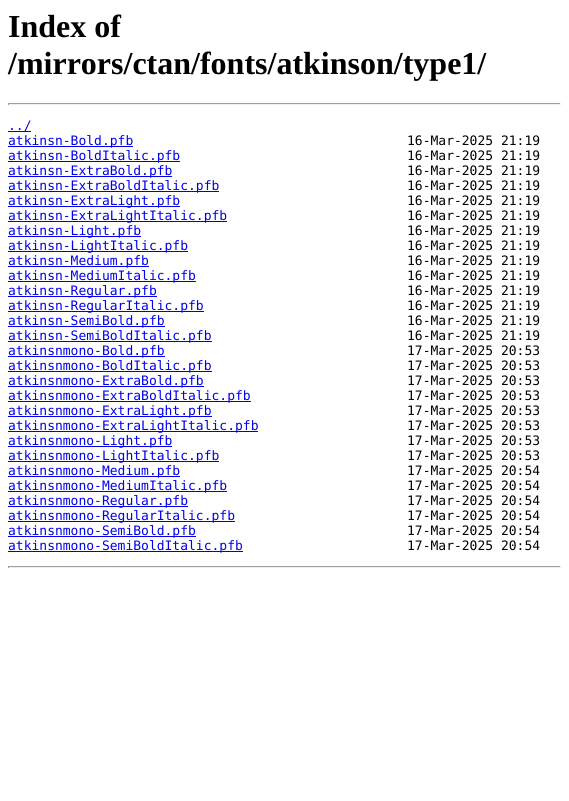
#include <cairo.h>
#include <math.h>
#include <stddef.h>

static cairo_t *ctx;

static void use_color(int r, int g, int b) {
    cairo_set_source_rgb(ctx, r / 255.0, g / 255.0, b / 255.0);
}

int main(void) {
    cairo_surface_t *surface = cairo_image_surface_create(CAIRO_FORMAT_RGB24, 569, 801);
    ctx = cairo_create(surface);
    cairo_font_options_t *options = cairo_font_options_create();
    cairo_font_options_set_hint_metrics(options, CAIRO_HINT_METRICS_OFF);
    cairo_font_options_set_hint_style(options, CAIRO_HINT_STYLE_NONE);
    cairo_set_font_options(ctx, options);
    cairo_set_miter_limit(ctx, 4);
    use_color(255, 255, 255);
    cairo_paint(ctx);
    cairo_select_font_face(ctx, "Liberation Serif", CAIRO_FONT_SLANT_NORMAL, CAIRO_FONT_WEIGHT_BOLD);
    cairo_set_font_size(ctx, 32);
    use_color(0, 0, 0);
    cairo_move_to(ctx, 8, 37);
    cairo_show_text(ctx, "Index of");
    cairo_move_to(ctx, 8, 74);
    cairo_show_text(ctx, "/mirrors/ctan/fonts/atkinson/type1/");
    use_color(159, 159, 159);
    cairo_rectangle(ctx, 8, 103, 553, 1);
    cairo_fill(ctx);
    use_color(238, 238, 238);
    cairo_rectangle(ctx, 560, 103, 1, 2);
    cairo_fill(ctx);
    cairo_rectangle(ctx, 8, 104, 553, 1);
    cairo_fill(ctx);
    use_color(159, 159, 159);
    cairo_rectangle(ctx, 8, 103, 1, 2);
    cairo_fill(ctx);
    use_color(0, 0, 238);
    cairo_rectangle(ctx, 8, 131, 23, 1);
    cairo_fill(ctx);
    cairo_select_font_face(ctx, "DejaVu Sans Mono", CAIRO_FONT_SLANT_NORMAL, CAIRO_FONT_WEIGHT_NORMAL);
    cairo_set_font_size(ctx, 13);
    cairo_move_to(ctx, 8, 130);
    cairo_show_text(ctx, "../");
    cairo_rectangle(ctx, 8, 146, 125, 1);
    cairo_fill(ctx);
    cairo_move_to(ctx, 8, 145);
    cairo_show_text(ctx, "atkinsn-Bold.pfb");
    use_color(0, 0, 0);
    cairo_move_to(ctx, 407, 145);
    cairo_show_text(ctx, "16-Mar-2025 21:19");
    use_color(0, 0, 238);
    cairo_rectangle(ctx, 8, 161, 172, 1);
    cairo_fill(ctx);
    cairo_move_to(ctx, 8, 160);
    cairo_show_text(ctx, "atkinsn-BoldItalic.pfb");
    use_color(0, 0, 0);
    cairo_move_to(ctx, 407, 160);
    cairo_show_text(ctx, "16-Mar-2025 21:19");
    use_color(0, 0, 238);
    cairo_rectangle(ctx, 8, 176, 164, 1);
    cairo_fill(ctx);
    cairo_move_to(ctx, 8, 175);
    cairo_show_text(ctx, "atkinsn-ExtraBold.pfb");
    use_color(0, 0, 0);
    cairo_move_to(ctx, 407, 175);
    cairo_show_text(ctx, "16-Mar-2025 21:19");
    use_color(0, 0, 238);
    cairo_rectangle(ctx, 8, 191, 211, 1);
    cairo_fill(ctx);
    cairo_move_to(ctx, 8, 190);
    cairo_show_text(ctx, "atkinsn-ExtraBoldItalic.pfb");
    use_color(0, 0, 0);
    cairo_move_to(ctx, 407, 190);
    cairo_show_text(ctx, "16-Mar-2025 21:19");
    use_color(0, 0, 238);
    cairo_rectangle(ctx, 8, 206, 172, 1);
    cairo_fill(ctx);
    cairo_move_to(ctx, 8, 205);
    cairo_show_text(ctx, "atkinsn-ExtraLight.pfb");
    use_color(0, 0, 0);
    cairo_move_to(ctx, 407, 205);
    cairo_show_text(ctx, "16-Mar-2025 21:19");
    use_color(0, 0, 238);
    cairo_rectangle(ctx, 8, 221, 219, 1);
    cairo_fill(ctx);
    cairo_move_to(ctx, 8, 220);
    cairo_show_text(ctx, "atkinsn-ExtraLightItalic.pfb");
    use_color(0, 0, 0);
    cairo_move_to(ctx, 407, 220);
    cairo_show_text(ctx, "16-Mar-2025 21:19");
    use_color(0, 0, 238);
    cairo_rectangle(ctx, 8, 236, 133, 1);
    cairo_fill(ctx);
    cairo_move_to(ctx, 8, 235);
    cairo_show_text(ctx, "atkinsn-Light.pfb");
    use_color(0, 0, 0);
    cairo_move_to(ctx, 407, 235);
    cairo_show_text(ctx, "16-Mar-2025 21:19");
    use_color(0, 0, 238);
    cairo_rectangle(ctx, 8, 251, 180, 1);
    cairo_fill(ctx);
    cairo_move_to(ctx, 8, 250);
    cairo_show_text(ctx, "atkinsn-LightItalic.pfb");
    use_color(0, 0, 0);
    cairo_move_to(ctx, 407, 250);
    cairo_show_text(ctx, "16-Mar-2025 21:19");
    use_color(0, 0, 238);
    cairo_rectangle(ctx, 8, 266, 141, 1);
    cairo_fill(ctx);
    cairo_move_to(ctx, 8, 265);
    cairo_show_text(ctx, "atkinsn-Medium.pfb");
    use_color(0, 0, 0);
    cairo_move_to(ctx, 407, 265);
    cairo_show_text(ctx, "16-Mar-2025 21:19");
    use_color(0, 0, 238);
    cairo_rectangle(ctx, 8, 281, 188, 1);
    cairo_fill(ctx);
    cairo_move_to(ctx, 8, 280);
    cairo_show_text(ctx, "atkinsn-MediumItalic.pfb");
    use_color(0, 0, 0);
    cairo_move_to(ctx, 407, 280);
    cairo_show_text(ctx, "16-Mar-2025 21:19");
    use_color(0, 0, 238);
    cairo_rectangle(ctx, 8, 296, 149, 1);
    cairo_fill(ctx);
    cairo_move_to(ctx, 8, 295);
    cairo_show_text(ctx, "atkinsn-Regular.pfb");
    use_color(0, 0, 0);
    cairo_move_to(ctx, 407, 295);
    cairo_show_text(ctx, "16-Mar-2025 21:19");
    use_color(0, 0, 238);
    cairo_rectangle(ctx, 8, 311, 196, 1);
    cairo_fill(ctx);
    cairo_move_to(ctx, 8, 310);
    cairo_show_text(ctx, "atkinsn-RegularItalic.pfb");
    use_color(0, 0, 0);
    cairo_move_to(ctx, 407, 310);
    cairo_show_text(ctx, "16-Mar-2025 21:19");
    use_color(0, 0, 238);
    cairo_rectangle(ctx, 8, 326, 157, 1);
    cairo_fill(ctx);
    cairo_move_to(ctx, 8, 325);
    cairo_show_text(ctx, "atkinsn-SemiBold.pfb");
    use_color(0, 0, 0);
    cairo_move_to(ctx, 407, 325);
    cairo_show_text(ctx, "16-Mar-2025 21:19");
    use_color(0, 0, 238);
    cairo_rectangle(ctx, 8, 341, 204, 1);
    cairo_fill(ctx);
    cairo_move_to(ctx, 8, 340);
    cairo_show_text(ctx, "atkinsn-SemiBoldItalic.pfb");
    use_color(0, 0, 0);
    cairo_move_to(ctx, 407, 340);
    cairo_show_text(ctx, "16-Mar-2025 21:19");
    use_color(0, 0, 238);
    cairo_rectangle(ctx, 8, 356, 157, 1);
    cairo_fill(ctx);
    cairo_move_to(ctx, 8, 355);
    cairo_show_text(ctx, "atkinsnmono-Bold.pfb");
    use_color(0, 0, 0);
    cairo_move_to(ctx, 407, 355);
    cairo_show_text(ctx, "17-Mar-2025 20:53");
    use_color(0, 0, 238);
    cairo_rectangle(ctx, 8, 371, 204, 1);
    cairo_fill(ctx);
    cairo_move_to(ctx, 8, 370);
    cairo_show_text(ctx, "atkinsnmono-BoldItalic.pfb");
    use_color(0, 0, 0);
    cairo_move_to(ctx, 407, 370);
    cairo_show_text(ctx, "17-Mar-2025 20:53");
    use_color(0, 0, 238);
    cairo_rectangle(ctx, 8, 386, 196, 1);
    cairo_fill(ctx);
    cairo_move_to(ctx, 8, 385);
    cairo_show_text(ctx, "atkinsnmono-ExtraBold.pfb");
    use_color(0, 0, 0);
    cairo_move_to(ctx, 407, 385);
    cairo_show_text(ctx, "17-Mar-2025 20:53");
    use_color(0, 0, 238);
    cairo_rectangle(ctx, 8, 401, 243, 1);
    cairo_fill(ctx);
    cairo_move_to(ctx, 8, 400);
    cairo_show_text(ctx, "atkinsnmono-ExtraBoldItalic.pfb");
    use_color(0, 0, 0);
    cairo_move_to(ctx, 407, 400);
    cairo_show_text(ctx, "17-Mar-2025 20:53");
    use_color(0, 0, 238);
    cairo_rectangle(ctx, 8, 416, 204, 1);
    cairo_fill(ctx);
    cairo_move_to(ctx, 8, 415);
    cairo_show_text(ctx, "atkinsnmono-ExtraLight.pfb");
    use_color(0, 0, 0);
    cairo_move_to(ctx, 407, 415);
    cairo_show_text(ctx, "17-Mar-2025 20:53");
    use_color(0, 0, 238);
    cairo_rectangle(ctx, 8, 431, 250, 1);
    cairo_fill(ctx);
    cairo_move_to(ctx, 8, 430);
    cairo_show_text(ctx, "atkinsnmono-ExtraLightItalic.pfb");
    use_color(0, 0, 0);
    cairo_move_to(ctx, 407, 430);
    cairo_show_text(ctx, "17-Mar-2025 20:53");
    use_color(0, 0, 238);
    cairo_rectangle(ctx, 8, 446, 164, 1);
    cairo_fill(ctx);
    cairo_move_to(ctx, 8, 445);
    cairo_show_text(ctx, "atkinsnmono-Light.pfb");
    use_color(0, 0, 0);
    cairo_move_to(ctx, 407, 445);
    cairo_show_text(ctx, "17-Mar-2025 20:53");
    use_color(0, 0, 238);
    cairo_rectangle(ctx, 8, 461, 211, 1);
    cairo_fill(ctx);
    cairo_move_to(ctx, 8, 460);
    cairo_show_text(ctx, "atkinsnmono-LightItalic.pfb");
    use_color(0, 0, 0);
    cairo_move_to(ctx, 407, 460);
    cairo_show_text(ctx, "17-Mar-2025 20:53");
    use_color(0, 0, 238);
    cairo_rectangle(ctx, 8, 476, 172, 1);
    cairo_fill(ctx);
    cairo_move_to(ctx, 8, 475);
    cairo_show_text(ctx, "atkinsnmono-Medium.pfb");
    use_color(0, 0, 0);
    cairo_move_to(ctx, 407, 475);
    cairo_show_text(ctx, "17-Mar-2025 20:54");
    use_color(0, 0, 238);
    cairo_rectangle(ctx, 8, 491, 219, 1);
    cairo_fill(ctx);
    cairo_move_to(ctx, 8, 490);
    cairo_show_text(ctx, "atkinsnmono-MediumItalic.pfb");
    use_color(0, 0, 0);
    cairo_move_to(ctx, 407, 490);
    cairo_show_text(ctx, "17-Mar-2025 20:54");
    use_color(0, 0, 238);
    cairo_rectangle(ctx, 8, 506, 180, 1);
    cairo_fill(ctx);
    cairo_move_to(ctx, 8, 505);
    cairo_show_text(ctx, "atkinsnmono-Regular.pfb");
    use_color(0, 0, 0);
    cairo_move_to(ctx, 407, 505);
    cairo_show_text(ctx, "17-Mar-2025 20:54");
    use_color(0, 0, 238);
    cairo_rectangle(ctx, 8, 521, 227, 1);
    cairo_fill(ctx);
    cairo_move_to(ctx, 8, 520);
    cairo_show_text(ctx, "atkinsnmono-RegularItalic.pfb");
    use_color(0, 0, 0);
    cairo_move_to(ctx, 407, 520);
    cairo_show_text(ctx, "17-Mar-2025 20:54");
    use_color(0, 0, 238);
    cairo_rectangle(ctx, 8, 536, 188, 1);
    cairo_fill(ctx);
    cairo_move_to(ctx, 8, 535);
    cairo_show_text(ctx, "atkinsnmono-SemiBold.pfb");
    use_color(0, 0, 0);
    cairo_move_to(ctx, 407, 535);
    cairo_show_text(ctx, "17-Mar-2025 20:54");
    use_color(0, 0, 238);
    cairo_rectangle(ctx, 8, 551, 235, 1);
    cairo_fill(ctx);
    cairo_move_to(ctx, 8, 550);
    cairo_show_text(ctx, "atkinsnmono-SemiBoldItalic.pfb");
    use_color(0, 0, 0);
    cairo_move_to(ctx, 407, 550);
    cairo_show_text(ctx, "17-Mar-2025 20:54");
    use_color(159, 159, 159);
    cairo_rectangle(ctx, 8, 566, 553, 1);
    cairo_fill(ctx);
    use_color(238, 238, 238);
    cairo_rectangle(ctx, 560, 566, 1, 2);
    cairo_fill(ctx);
    cairo_rectangle(ctx, 8, 567, 553, 1);
    cairo_fill(ctx);
    use_color(159, 159, 159);
    cairo_rectangle(ctx, 8, 566, 1, 2);
    cairo_fill(ctx);
    cairo_surface_write_to_png(surface, "result.png");
    cairo_font_options_destroy(options);
    cairo_destroy(ctx);
    cairo_surface_destroy(surface);
    return 0;
}
